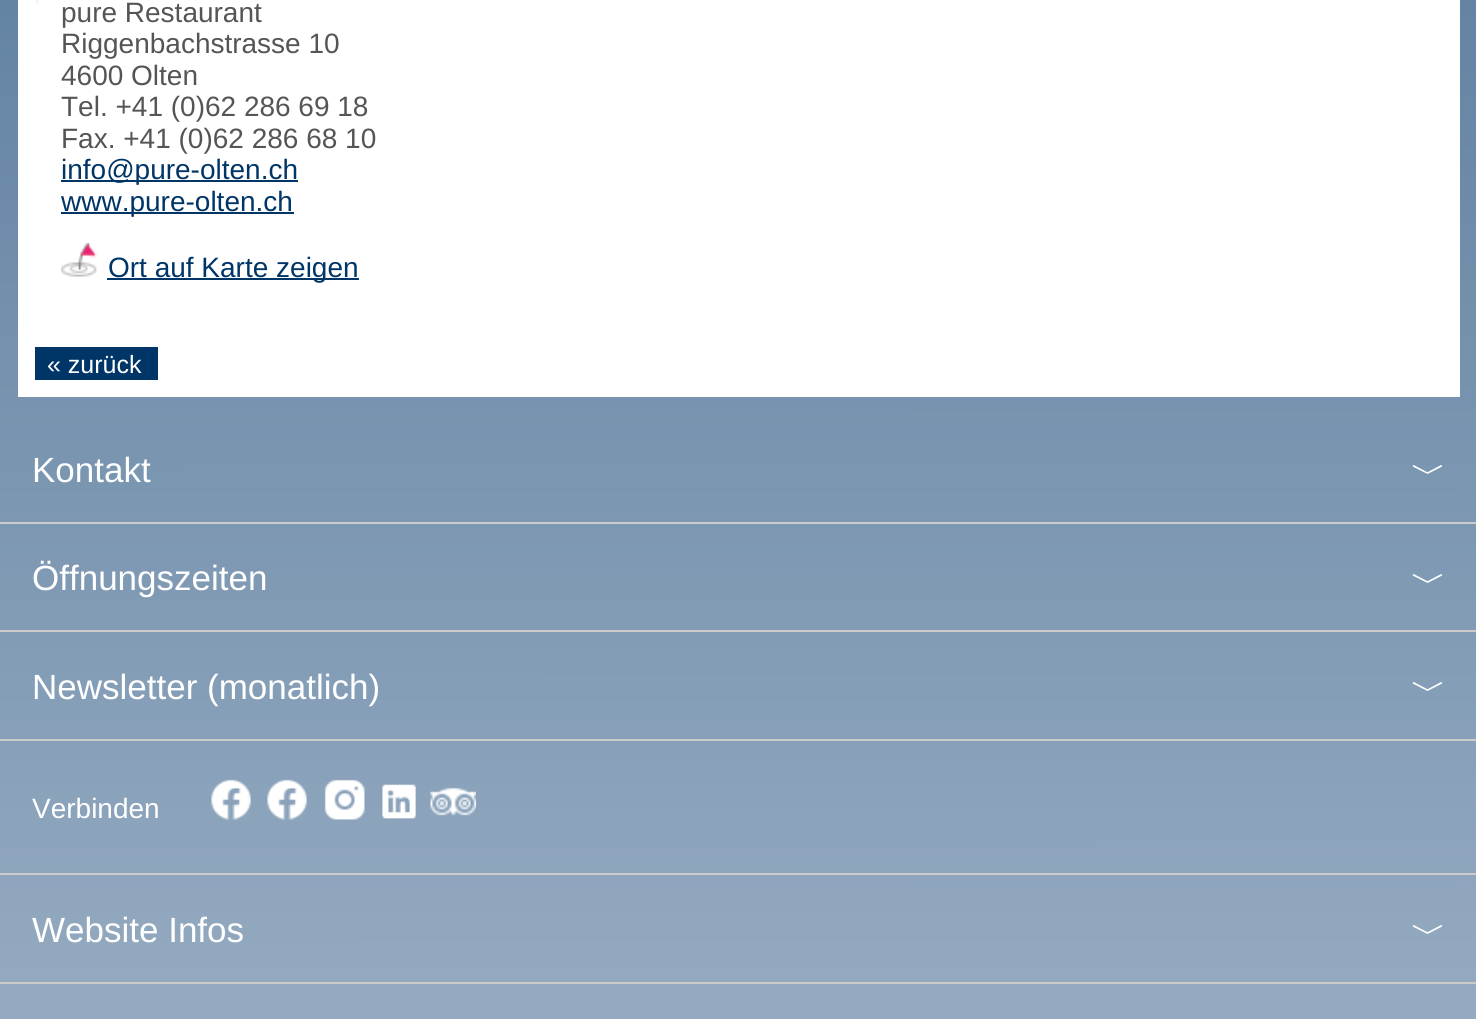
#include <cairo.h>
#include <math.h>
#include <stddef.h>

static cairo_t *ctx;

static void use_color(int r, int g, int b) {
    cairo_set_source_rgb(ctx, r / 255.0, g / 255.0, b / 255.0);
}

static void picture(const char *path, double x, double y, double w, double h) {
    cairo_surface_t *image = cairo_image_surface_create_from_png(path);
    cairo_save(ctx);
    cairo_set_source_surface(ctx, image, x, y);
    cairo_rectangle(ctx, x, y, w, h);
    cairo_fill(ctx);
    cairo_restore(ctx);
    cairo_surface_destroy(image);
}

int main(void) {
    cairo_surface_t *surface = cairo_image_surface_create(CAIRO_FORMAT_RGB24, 1476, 1019);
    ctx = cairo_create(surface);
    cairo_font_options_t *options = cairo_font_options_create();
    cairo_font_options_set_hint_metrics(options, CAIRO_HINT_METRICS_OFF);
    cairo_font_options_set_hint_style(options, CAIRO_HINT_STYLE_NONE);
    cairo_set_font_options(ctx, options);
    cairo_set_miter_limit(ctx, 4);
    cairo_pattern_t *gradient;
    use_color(255, 255, 255);
    cairo_paint(ctx);
    gradient = cairo_pattern_create_linear(738, -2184, 739, 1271);
    cairo_pattern_add_color_stop_rgba(gradient, 0.03, 0, 0.208, 0.404, 1);
    cairo_pattern_add_color_stop_rgba(gradient, 1, 0.631, 0.706, 0.784, 1);
    cairo_set_source(ctx, gradient);
    cairo_pattern_destroy(gradient);
    cairo_rectangle(ctx, 0, 0, 1476, 1019);
    cairo_fill(ctx);
    use_color(255, 255, 255);
    cairo_rectangle(ctx, 18, 0, 1442, 397);
    cairo_fill(ctx);
    picture("img1.png", 35, 0, 4, 5);
    cairo_select_font_face(ctx, "Liberation Sans", CAIRO_FONT_SLANT_NORMAL, CAIRO_FONT_WEIGHT_NORMAL);
    cairo_set_font_size(ctx, 28);
    use_color(85, 85, 85);
    cairo_move_to(ctx, 61, 22);
    cairo_show_text(ctx, "pure Restaurant");
    cairo_move_to(ctx, 61, 53);
    cairo_show_text(ctx, "Riggenbachstrasse 10");
    cairo_move_to(ctx, 61, 85);
    cairo_show_text(ctx, "4600 Olten");
    cairo_move_to(ctx, 61, 116);
    cairo_show_text(ctx, "Tel. +41 (0)62 286 69 18");
    cairo_move_to(ctx, 61, 148);
    cairo_show_text(ctx, "Fax. +41 (0)62 286 68 10");
    use_color(0, 53, 103);
    cairo_rectangle(ctx, 61, 180, 237, 2);
    cairo_fill(ctx);
    cairo_move_to(ctx, 61, 179);
    cairo_show_text(ctx, "info@pure-olten.ch");
    cairo_rectangle(ctx, 61, 212, 233, 2);
    cairo_fill(ctx);
    cairo_move_to(ctx, 61, 211);
    cairo_show_text(ctx, "www.pure-olten.ch");
    picture("img2.png", 61, 243, 36, 34);
    cairo_rectangle(ctx, 107, 278, 252, 2);
    cairo_fill(ctx);
    cairo_move_to(ctx, 108, 277);
    cairo_show_text(ctx, "Ort auf Karte zeigen");
    cairo_rectangle(ctx, 35, 347, 123, 33);
    cairo_fill(ctx);
    cairo_set_font_size(ctx, 25);
    use_color(255, 255, 255);
    cairo_move_to(ctx, 47, 373);
    cairo_show_text(ctx, "« zurück");
    use_color(203, 203, 203);
    cairo_rectangle(ctx, 0, 522, 1476, 2);
    cairo_fill(ctx);
    cairo_set_font_size(ctx, 35);
    use_color(255, 255, 255);
    cairo_move_to(ctx, 32, 482);
    cairo_show_text(ctx, "Kontakt");
    cairo_select_font_face(ctx, "WenQuanYi Zen Hei Medium", CAIRO_FONT_SLANT_NORMAL, CAIRO_FONT_WEIGHT_NORMAL);
    cairo_move_to(ctx, 1411, 485);
    cairo_show_text(ctx, "﹀");
    use_color(203, 203, 203);
    cairo_rectangle(ctx, 0, 630, 1476, 2);
    cairo_fill(ctx);
    cairo_select_font_face(ctx, "Liberation Sans", CAIRO_FONT_SLANT_NORMAL, CAIRO_FONT_WEIGHT_NORMAL);
    use_color(255, 255, 255);
    cairo_move_to(ctx, 32, 590);
    cairo_show_text(ctx, "Öffnungszeiten");
    cairo_select_font_face(ctx, "WenQuanYi Zen Hei Medium", CAIRO_FONT_SLANT_NORMAL, CAIRO_FONT_WEIGHT_NORMAL);
    cairo_move_to(ctx, 1411, 594);
    cairo_show_text(ctx, "﹀");
    use_color(203, 203, 203);
    cairo_rectangle(ctx, 0, 739, 1476, 2);
    cairo_fill(ctx);
    cairo_select_font_face(ctx, "Liberation Sans", CAIRO_FONT_SLANT_NORMAL, CAIRO_FONT_WEIGHT_NORMAL);
    use_color(255, 255, 255);
    cairo_move_to(ctx, 32, 699);
    cairo_show_text(ctx, "Newsletter (monatlich)");
    cairo_select_font_face(ctx, "WenQuanYi Zen Hei Medium", CAIRO_FONT_SLANT_NORMAL, CAIRO_FONT_WEIGHT_NORMAL);
    cairo_move_to(ctx, 1411, 702);
    cairo_show_text(ctx, "﹀");
    use_color(203, 203, 203);
    cairo_rectangle(ctx, 0, 873, 1476, 2);
    cairo_fill(ctx);
    cairo_select_font_face(ctx, "Liberation Sans", CAIRO_FONT_SLANT_NORMAL, CAIRO_FONT_WEIGHT_NORMAL);
    cairo_set_font_size(ctx, 28);
    use_color(255, 255, 255);
    cairo_move_to(ctx, 32, 818);
    cairo_show_text(ctx, "Verbinden");
    picture("img3.png", 211, 779, 40, 41);
    picture("img3.png", 267, 779, 40, 41);
    picture("img4.png", 324, 779, 41, 41);
    picture("img5.png", 382, 784, 34, 35);
    picture("img6.png", 430, 787, 46, 29);
    use_color(203, 203, 203);
    cairo_rectangle(ctx, 0, 982, 1476, 2);
    cairo_fill(ctx);
    cairo_set_font_size(ctx, 35);
    use_color(255, 255, 255);
    cairo_move_to(ctx, 32, 942);
    cairo_show_text(ctx, "Website Infos");
    cairo_select_font_face(ctx, "WenQuanYi Zen Hei Medium", CAIRO_FONT_SLANT_NORMAL, CAIRO_FONT_WEIGHT_NORMAL);
    cairo_move_to(ctx, 1411, 945);
    cairo_show_text(ctx, "﹀");
    cairo_surface_write_to_png(surface, "result.png");
    cairo_font_options_destroy(options);
    cairo_destroy(ctx);
    cairo_surface_destroy(surface);
    return 0;
}
